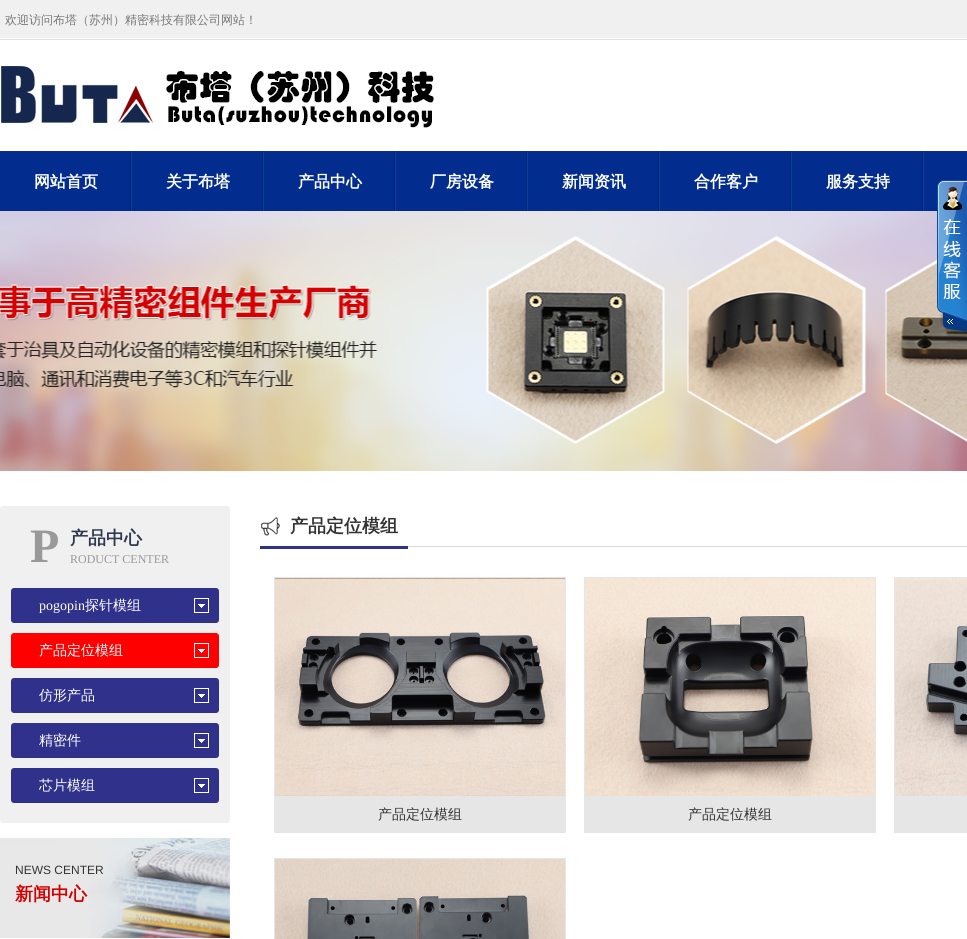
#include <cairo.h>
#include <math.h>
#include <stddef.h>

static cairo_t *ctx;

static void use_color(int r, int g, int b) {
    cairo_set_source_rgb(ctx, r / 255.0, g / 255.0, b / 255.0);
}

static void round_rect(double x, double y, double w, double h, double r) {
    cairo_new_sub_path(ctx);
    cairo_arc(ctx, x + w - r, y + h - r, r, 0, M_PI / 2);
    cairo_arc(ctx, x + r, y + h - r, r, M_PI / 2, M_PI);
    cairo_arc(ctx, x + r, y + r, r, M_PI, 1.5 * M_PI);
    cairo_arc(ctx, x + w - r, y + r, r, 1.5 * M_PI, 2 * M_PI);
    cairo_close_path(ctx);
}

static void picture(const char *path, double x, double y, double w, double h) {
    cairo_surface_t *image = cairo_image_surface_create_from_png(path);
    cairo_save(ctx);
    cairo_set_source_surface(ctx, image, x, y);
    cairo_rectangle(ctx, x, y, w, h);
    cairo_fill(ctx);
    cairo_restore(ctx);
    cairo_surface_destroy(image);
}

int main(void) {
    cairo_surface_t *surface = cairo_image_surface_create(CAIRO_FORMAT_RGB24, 967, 939);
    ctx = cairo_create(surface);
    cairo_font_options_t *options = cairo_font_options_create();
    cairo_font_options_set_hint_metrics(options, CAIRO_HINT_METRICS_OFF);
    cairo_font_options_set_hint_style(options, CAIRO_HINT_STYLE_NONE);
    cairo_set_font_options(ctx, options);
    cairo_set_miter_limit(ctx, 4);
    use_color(255, 255, 255);
    cairo_paint(ctx);
    picture("img1.png", 0, 0, 967, 211);
    cairo_select_font_face(ctx, "WenQuanYi Zen Hei Medium", CAIRO_FONT_SLANT_NORMAL, CAIRO_FONT_WEIGHT_NORMAL);
    cairo_set_font_size(ctx, 12);
    use_color(119, 119, 119);
    cairo_move_to(ctx, 5, 24);
    cairo_show_text(ctx, "欢迎访问布塔（苏州）精密科技有限公司网站！");
    picture("img2.png", 1, 66, 433, 63);
    picture("img3.png", 130, 151, 2, 60);
    cairo_select_font_face(ctx, "WenQuanYi Zen Hei", CAIRO_FONT_SLANT_NORMAL, CAIRO_FONT_WEIGHT_BOLD);
    cairo_set_font_size(ctx, 16);
    use_color(255, 255, 255);
    cairo_move_to(ctx, 34, 187);
    cairo_show_text(ctx, "网站首页");
    picture("img3.png", 262, 151, 2, 60);
    cairo_move_to(ctx, 166, 187);
    cairo_show_text(ctx, "关于布塔");
    picture("img3.png", 394, 151, 2, 60);
    cairo_move_to(ctx, 298, 187);
    cairo_show_text(ctx, "产品中心");
    picture("img3.png", 526, 151, 2, 60);
    cairo_move_to(ctx, 430, 187);
    cairo_show_text(ctx, "厂房设备");
    picture("img3.png", 658, 151, 2, 60);
    cairo_move_to(ctx, 562, 187);
    cairo_show_text(ctx, "新闻资讯");
    picture("img3.png", 790, 151, 2, 60);
    cairo_move_to(ctx, 694, 187);
    cairo_show_text(ctx, "合作客户");
    picture("img3.png", 922, 151, 2, 60);
    cairo_move_to(ctx, 826, 187);
    cairo_show_text(ctx, "服务支持");
    picture("img5.png", 0, 211, 967, 260);
    picture("img4.png", 937, 180, 30, 154);
    use_color(240, 240, 240);
    round_rect(0, 506, 230, 317, 3);
    cairo_fill(ctx);
    cairo_select_font_face(ctx, "Liberation Serif", CAIRO_FONT_SLANT_NORMAL, CAIRO_FONT_WEIGHT_BOLD);
    cairo_set_font_size(ctx, 48);
    use_color(153, 153, 153);
    cairo_move_to(ctx, 30, 562);
    cairo_show_text(ctx, "P");
    cairo_select_font_face(ctx, "WenQuanYi Zen Hei", CAIRO_FONT_SLANT_NORMAL, CAIRO_FONT_WEIGHT_BOLD);
    cairo_set_font_size(ctx, 18);
    use_color(46, 55, 78);
    cairo_move_to(ctx, 70, 544);
    cairo_show_text(ctx, "产品中心");
    cairo_select_font_face(ctx, "Liberation Serif", CAIRO_FONT_SLANT_NORMAL, CAIRO_FONT_WEIGHT_NORMAL);
    cairo_set_font_size(ctx, 12);
    use_color(153, 153, 153);
    cairo_move_to(ctx, 70, 563);
    cairo_show_text(ctx, "RODUCT CENTER");
    use_color(47, 49, 139);
    round_rect(11, 588, 208, 35, 3);
    cairo_fill(ctx);
    picture("img6.png", 194, 598, 15, 15);
    cairo_set_font_size(ctx, 14);
    use_color(255, 255, 255);
    cairo_move_to(ctx, 39, 610);
    cairo_show_text(ctx, "pogopin");
    cairo_select_font_face(ctx, "WenQuanYi Zen Hei Medium", CAIRO_FONT_SLANT_NORMAL, CAIRO_FONT_WEIGHT_NORMAL);
    cairo_move_to(ctx, 85, 610);
    cairo_show_text(ctx, "探针模组");
    use_color(255, 0, 0);
    round_rect(11, 633, 208, 35, 3);
    cairo_fill(ctx);
    picture("img7.png", 194, 643, 15, 15);
    use_color(255, 255, 255);
    cairo_move_to(ctx, 39, 655);
    cairo_show_text(ctx, "产品定位模组");
    use_color(47, 49, 139);
    round_rect(11, 678, 208, 35, 3);
    cairo_fill(ctx);
    picture("img6.png", 194, 688, 15, 15);
    use_color(255, 255, 255);
    cairo_move_to(ctx, 39, 700);
    cairo_show_text(ctx, "仿形产品");
    use_color(47, 49, 139);
    round_rect(11, 723, 208, 35, 3);
    cairo_fill(ctx);
    picture("img6.png", 194, 733, 15, 15);
    use_color(255, 255, 255);
    cairo_move_to(ctx, 39, 745);
    cairo_show_text(ctx, "精密件");
    use_color(47, 49, 139);
    round_rect(11, 768, 208, 35, 3);
    cairo_fill(ctx);
    picture("img6.png", 194, 778, 15, 15);
    use_color(255, 255, 255);
    cairo_move_to(ctx, 39, 790);
    cairo_show_text(ctx, "芯片模组");
    picture("img8.png", 0, 838, 230, 100);
    cairo_select_font_face(ctx, "Liberation Sans", CAIRO_FONT_SLANT_NORMAL, CAIRO_FONT_WEIGHT_NORMAL);
    cairo_set_font_size(ctx, 12);
    use_color(51, 51, 51);
    cairo_move_to(ctx, 15, 874);
    cairo_show_text(ctx, "NEWS CENTER");
    cairo_select_font_face(ctx, "WenQuanYi Zen Hei", CAIRO_FONT_SLANT_NORMAL, CAIRO_FONT_WEIGHT_BOLD);
    cairo_set_font_size(ctx, 18);
    use_color(211, 0, 0);
    cairo_move_to(ctx, 15, 900);
    cairo_show_text(ctx, "新闻中心");
    use_color(221, 221, 221);
    cairo_rectangle(ctx, 408, 546, 559, 1);
    cairo_fill(ctx);
    picture("img9.png", 260, 517, 20, 19);
    use_color(47, 49, 139);
    cairo_rectangle(ctx, 260, 546, 148, 3);
    cairo_fill(ctx);
    use_color(51, 51, 51);
    cairo_move_to(ctx, 290, 532);
    cairo_show_text(ctx, "产品定位模组");
    cairo_rectangle(ctx, 274.5, 577.5, 291, 255);
    use_color(230, 230, 230);
    cairo_set_line_width(ctx, 1);
    cairo_stroke(ctx);
    picture("img10.png", 275, 578, 290, 218);
    cairo_rectangle(ctx, 275, 796, 290, 36);
    cairo_fill(ctx);
    cairo_select_font_face(ctx, "WenQuanYi Zen Hei Medium", CAIRO_FONT_SLANT_NORMAL, CAIRO_FONT_WEIGHT_NORMAL);
    cairo_set_font_size(ctx, 14);
    use_color(51, 51, 51);
    cairo_move_to(ctx, 378, 819);
    cairo_show_text(ctx, "产品定位模组");
    cairo_rectangle(ctx, 584.5, 577.5, 291, 255);
    use_color(230, 230, 230);
    cairo_stroke(ctx);
    picture("img11.png", 585, 578, 290, 218);
    cairo_rectangle(ctx, 585, 796, 290, 36);
    cairo_fill(ctx);
    use_color(51, 51, 51);
    cairo_move_to(ctx, 688, 819);
    cairo_show_text(ctx, "产品定位模组");
    cairo_rectangle(ctx, 894.5, 577.5, 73, 255);
    use_color(230, 230, 230);
    cairo_stroke(ctx);
    picture("img12.png", 895, 578, 72, 218);
    cairo_rectangle(ctx, 895, 796, 72, 36);
    cairo_fill(ctx);
    cairo_rectangle(ctx, 274.5, 858.5, 291, 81);
    cairo_stroke(ctx);
    picture("img13.png", 275, 859, 290, 80);
    cairo_surface_write_to_png(surface, "result.png");
    cairo_font_options_destroy(options);
    cairo_destroy(ctx);
    cairo_surface_destroy(surface);
    return 0;
}
